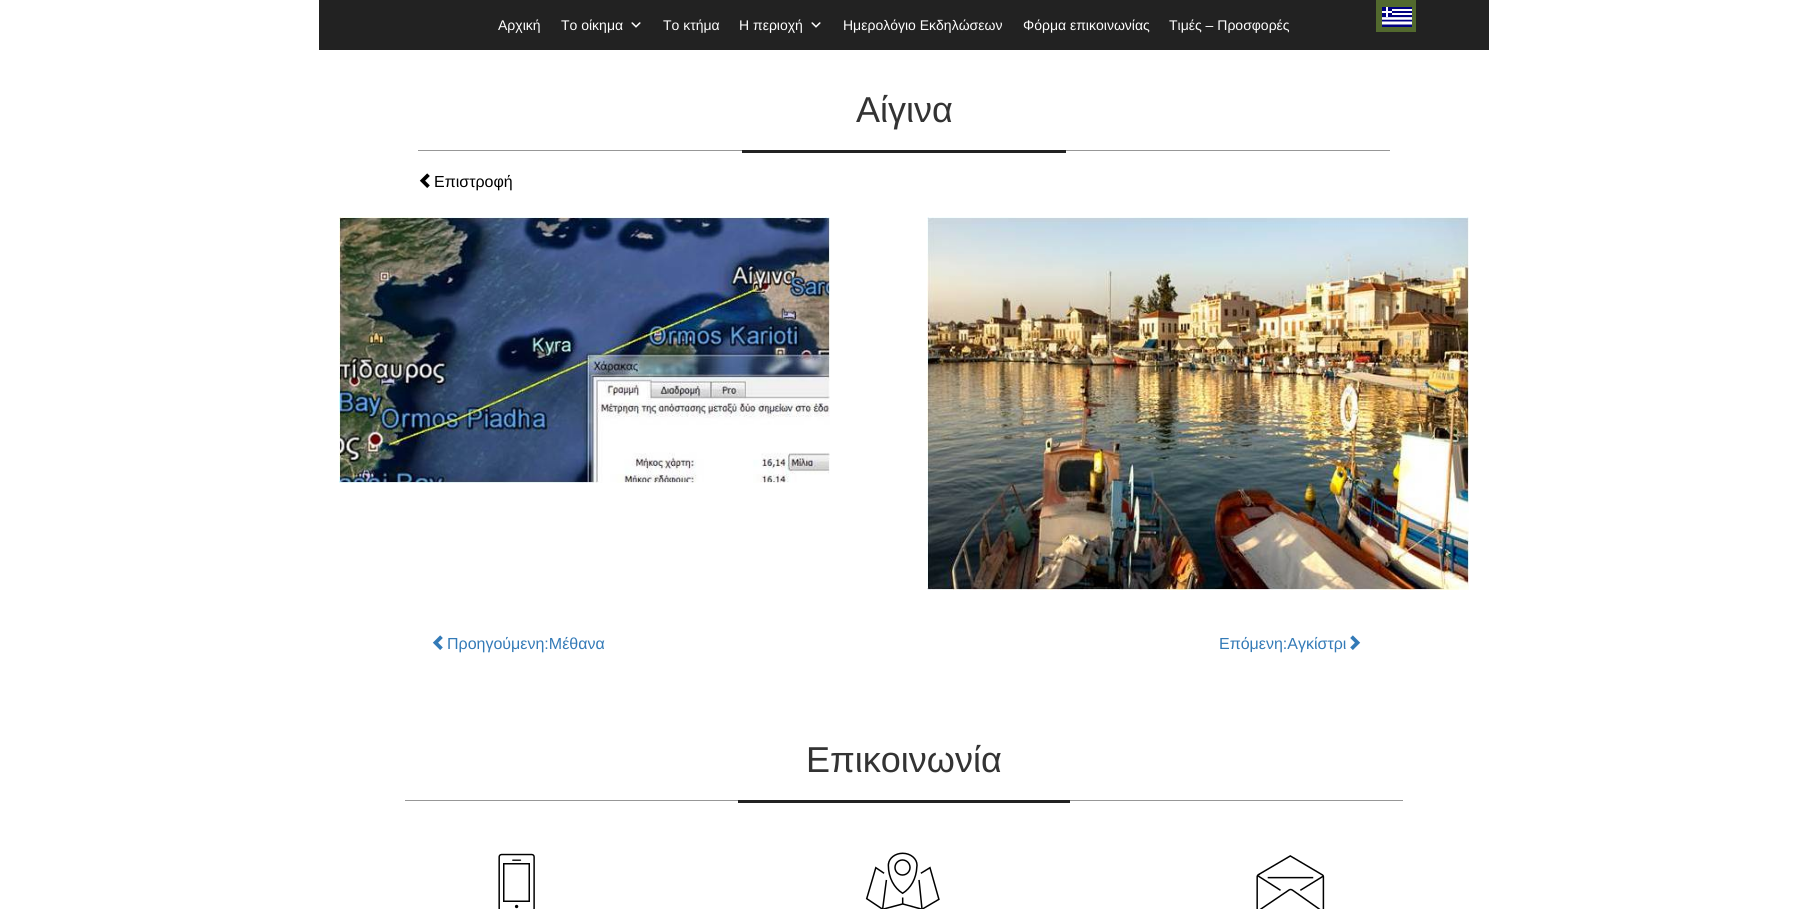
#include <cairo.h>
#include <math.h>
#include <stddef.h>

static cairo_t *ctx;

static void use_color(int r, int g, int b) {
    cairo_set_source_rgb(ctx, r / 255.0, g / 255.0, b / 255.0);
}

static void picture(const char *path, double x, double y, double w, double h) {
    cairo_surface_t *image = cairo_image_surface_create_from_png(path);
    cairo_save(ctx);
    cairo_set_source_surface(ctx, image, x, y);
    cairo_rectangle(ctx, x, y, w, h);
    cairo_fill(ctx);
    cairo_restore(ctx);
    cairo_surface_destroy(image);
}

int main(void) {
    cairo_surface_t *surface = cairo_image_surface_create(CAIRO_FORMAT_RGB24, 1808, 909);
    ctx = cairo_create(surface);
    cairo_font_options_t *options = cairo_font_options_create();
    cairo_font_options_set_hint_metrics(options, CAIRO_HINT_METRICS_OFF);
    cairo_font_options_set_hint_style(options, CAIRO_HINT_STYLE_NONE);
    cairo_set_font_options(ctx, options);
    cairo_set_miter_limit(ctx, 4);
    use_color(255, 255, 255);
    cairo_paint(ctx);
    use_color(34, 34, 34);
    cairo_rectangle(ctx, 319, 0, 1170, 50);
    cairo_fill(ctx);
    cairo_select_font_face(ctx, "Liberation Sans", CAIRO_FONT_SLANT_NORMAL, CAIRO_FONT_WEIGHT_NORMAL);
    cairo_set_font_size(ctx, 14);
    use_color(255, 255, 255);
    cairo_move_to(ctx, 498, 30);
    cairo_show_text(ctx, "Αρχική");
    cairo_move_to(ctx, 561, 30);
    cairo_show_text(ctx, "Το οίκημα");
    picture("img1.png", 631, 22, 10, 6);
    cairo_move_to(ctx, 663, 30);
    cairo_show_text(ctx, "Το κτήμα");
    cairo_move_to(ctx, 739, 30);
    cairo_show_text(ctx, "Η περιοχή");
    picture("img1.png", 811, 22, 10, 6);
    cairo_move_to(ctx, 843, 30);
    cairo_show_text(ctx, "Ημερολόγιο Εκδηλώσεων");
    cairo_move_to(ctx, 1023, 30);
    cairo_show_text(ctx, "Φόρμα επικοινωνίας");
    cairo_move_to(ctx, 1169, 30);
    cairo_show_text(ctx, "Τιμές – Προσφορές");
    use_color(82, 105, 46);
    cairo_rectangle(ctx, 1376, 0, 40, 32);
    cairo_fill(ctx);
    picture("img2.png", 1382, 7, 30, 20);
    cairo_set_font_size(ctx, 36);
    use_color(51, 51, 51);
    cairo_move_to(ctx, 856, 122);
    cairo_show_text(ctx, "Αίγινα");
    use_color(151, 151, 151);
    cairo_rectangle(ctx, 418, 150, 972, 1);
    cairo_fill(ctx);
    use_color(34, 34, 34);
    cairo_rectangle(ctx, 742, 150, 324, 3);
    cairo_fill(ctx);
    picture("img3.png", 419, 173, 11, 15);
    cairo_set_font_size(ctx, 16);
    use_color(0, 0, 0);
    cairo_move_to(ctx, 434, 187);
    cairo_show_text(ctx, "Επιστροφή");
    picture("img4.png", 339, 217, 491, 266);
    picture("img5.png", 927, 217, 542, 373);
    picture("img6.png", 432, 635, 11, 15);
    use_color(51, 122, 183);
    cairo_move_to(ctx, 447, 649);
    cairo_show_text(ctx, "Προηγούμενη:Μέθανα");
    cairo_move_to(ctx, 1219, 649);
    cairo_show_text(ctx, "Επόμενη:Αγκίστρι");
    picture("img7.png", 1350, 635, 11, 15);
    cairo_set_font_size(ctx, 36);
    use_color(51, 51, 51);
    cairo_move_to(ctx, 806, 772);
    cairo_show_text(ctx, "Επικοινωνία");
    use_color(151, 151, 151);
    cairo_rectangle(ctx, 405, 800, 998, 1);
    cairo_fill(ctx);
    use_color(34, 34, 34);
    cairo_rectangle(ctx, 738, 800, 332, 3);
    cairo_fill(ctx);
    picture("img8.png", 498, 853, 37, 56);
    picture("img9.png", 865, 852, 75, 57);
    picture("img10.png", 1256, 855, 69, 54);
    cairo_surface_write_to_png(surface, "result.png");
    cairo_font_options_destroy(options);
    cairo_destroy(ctx);
    cairo_surface_destroy(surface);
    return 0;
}
